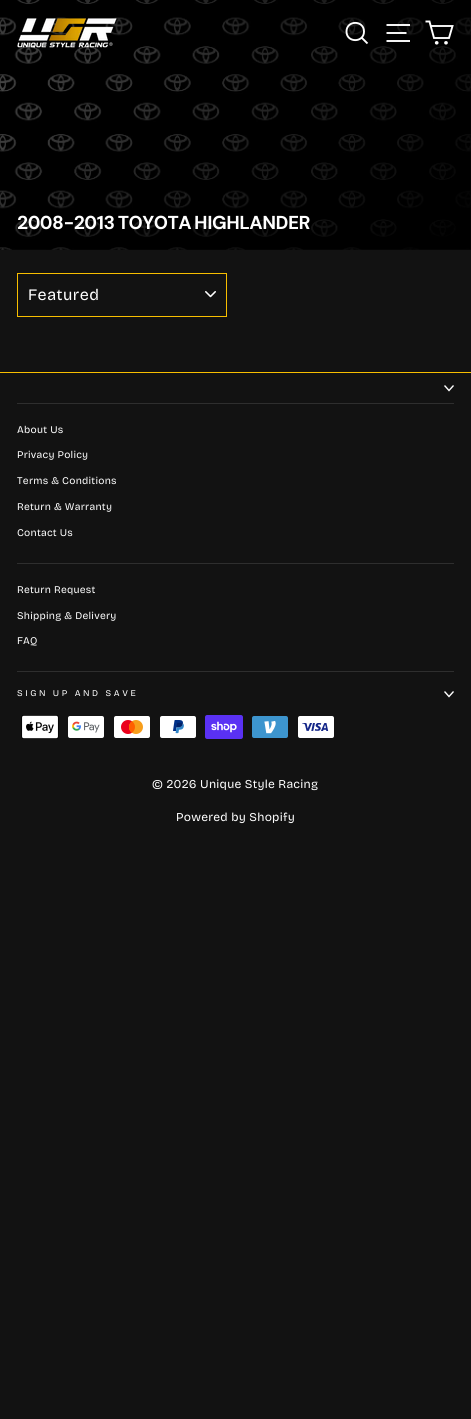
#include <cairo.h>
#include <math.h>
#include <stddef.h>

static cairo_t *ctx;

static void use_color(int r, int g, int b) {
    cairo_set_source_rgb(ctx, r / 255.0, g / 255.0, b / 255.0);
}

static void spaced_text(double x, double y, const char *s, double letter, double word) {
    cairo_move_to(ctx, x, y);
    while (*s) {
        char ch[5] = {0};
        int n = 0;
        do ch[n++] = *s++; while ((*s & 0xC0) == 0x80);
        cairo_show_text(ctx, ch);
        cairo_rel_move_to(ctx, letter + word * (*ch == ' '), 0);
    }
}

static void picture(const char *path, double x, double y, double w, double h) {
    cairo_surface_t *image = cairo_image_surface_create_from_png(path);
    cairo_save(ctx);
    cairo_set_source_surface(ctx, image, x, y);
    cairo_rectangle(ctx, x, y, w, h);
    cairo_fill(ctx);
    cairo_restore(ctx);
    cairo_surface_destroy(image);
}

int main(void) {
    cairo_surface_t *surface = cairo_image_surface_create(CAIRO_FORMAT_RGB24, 471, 1419);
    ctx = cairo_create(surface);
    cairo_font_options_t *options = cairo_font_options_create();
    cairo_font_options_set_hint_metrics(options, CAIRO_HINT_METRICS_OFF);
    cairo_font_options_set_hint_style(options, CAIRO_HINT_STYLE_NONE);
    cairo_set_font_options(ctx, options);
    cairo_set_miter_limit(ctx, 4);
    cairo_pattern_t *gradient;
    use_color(18, 18, 18);
    cairo_paint(ctx);
    picture("img2.png", 0, 0, 471, 250);
    gradient = cairo_pattern_create_linear(236, 0, 236, 66);
    cairo_pattern_add_color_stop_rgba(gradient, 0, 0, 0, 0, 0.3);
    cairo_pattern_add_color_stop_rgba(gradient, 1, 0, 0, 0, 0);
    cairo_set_source(ctx, gradient);
    cairo_pattern_destroy(gradient);
    cairo_rectangle(ctx, 0, 0, 471, 57);
    cairo_fill(ctx);
    picture("img1.png", 17, 18, 100, 30);
    cairo_new_path(ctx);
    cairo_move_to(ctx, 364, 31.5);
    cairo_curve_to(ctx, 364, 43, 346.5, 43, 346.5, 31.5);
    cairo_curve_to(ctx, 346.5, 20, 364, 20, 364, 31.5);
    cairo_close_path(ctx);
    cairo_move_to(ctx, 367.5, 43.5);
    cairo_line_to(ctx, 361.5, 37.5);
    use_color(255, 255, 255);
    cairo_set_line_width(ctx, 1.9);
    cairo_stroke(ctx);
    cairo_new_path(ctx);
    cairo_move_to(ctx, 386.5, 25);
    cairo_line_to(ctx, 410, 25);
    cairo_move_to(ctx, 386.5, 33);
    cairo_line_to(ctx, 406.5, 33);
    cairo_move_to(ctx, 386.5, 41);
    cairo_line_to(ctx, 410, 41);
    cairo_stroke(ctx);
    cairo_new_path(ctx);
    cairo_move_to(ctx, 430.5, 26);
    cairo_line_to(ctx, 452.5, 26);
    cairo_line_to(ctx, 449, 38);
    cairo_line_to(ctx, 434, 38);
    cairo_line_to(ctx, 429.5, 21.5);
    cairo_line_to(ctx, 425.5, 21.5);
    cairo_stroke(ctx);
    cairo_arc(ctx, 436.7, 42.8, 0.9, 0, 2 * M_PI);
    cairo_stroke(ctx);
    cairo_arc(ctx, 446, 42.8, 0.9, 0, 2 * M_PI);
    cairo_stroke(ctx);
    gradient = cairo_pattern_create_radial(0, 0, 0, 0, 0, 1);
    cairo_pattern_set_matrix(gradient, &(cairo_matrix_t){1.0 / 491, 0, 0, 1.0 / 155, -1.0 * 164 / 491, -1.0 * 224 / 155});
    cairo_pattern_add_color_stop_rgba(gradient, 0, 0, 0, 0, 0.24);
    cairo_pattern_add_color_stop_rgba(gradient, 0.6, 0, 0, 0, 0);
    cairo_set_source(ctx, gradient);
    cairo_pattern_destroy(gradient);
    cairo_rectangle(ctx, 0, 163, 297, 87);
    cairo_fill(ctx);
    cairo_select_font_face(ctx, "DM Sans", CAIRO_FONT_SLANT_NORMAL, CAIRO_FONT_WEIGHT_BOLD);
    cairo_set_font_size(ctx, 18.75);
    use_color(255, 255, 255);
    spaced_text(17, 229, "2008-2013 TOYOTA HIGHLANDER", -0.5, -1);
    picture("img3.png", 205, 291, 11, 7);
    cairo_rectangle(ctx, 17.5, 273.5, 209, 43);
    use_color(247, 190, 0);
    cairo_set_line_width(ctx, 1);
    cairo_stroke(ctx);
    cairo_select_font_face(ctx, "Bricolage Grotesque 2", CAIRO_FONT_SLANT_NORMAL, CAIRO_FONT_WEIGHT_NORMAL);
    cairo_set_font_size(ctx, 16);
    use_color(255, 255, 255);
    spaced_text(28, 300, "Featured", 0.5, 0);
    use_color(247, 190, 0);
    cairo_rectangle(ctx, 0, 372, 471, 1);
    cairo_fill(ctx);
    cairo_new_path(ctx);
    cairo_move_to(ctx, 444.5, 385.5);
    cairo_line_to(ctx, 449, 390.5);
    cairo_line_to(ctx, 453.5, 385.5);
    use_color(255, 255, 255);
    cairo_set_line_width(ctx, 1.4);
    cairo_stroke(ctx);
    use_color(46, 46, 46);
    cairo_rectangle(ctx, 17, 403, 437, 1);
    cairo_fill(ctx);
    cairo_select_font_face(ctx, "Bricolage Grotesque", CAIRO_FONT_SLANT_NORMAL, CAIRO_FONT_WEIGHT_NORMAL);
    cairo_set_font_size(ctx, 10.25);
    use_color(255, 255, 255);
    spaced_text(17, 433, "About Us", 0.25, 0);
    spaced_text(17, 458, "Privacy Policy", 0.25, 0);
    spaced_text(17, 484, "Terms & Conditions", 0.25, 0);
    spaced_text(17, 510, "Return & Warranty", 0.25, 0);
    spaced_text(17, 536, "Contact Us", 0.25, 0);
    use_color(46, 46, 46);
    cairo_rectangle(ctx, 17, 563, 437, 1);
    cairo_fill(ctx);
    use_color(255, 255, 255);
    spaced_text(17, 593, "Return Request", 0.25, 0);
    spaced_text(17, 619, "Shipping & Delivery", 0.25, 0);
    spaced_text(17, 644, "FAQ", 0.25, 0);
    use_color(46, 46, 46);
    cairo_rectangle(ctx, 17, 671, 437, 1);
    cairo_fill(ctx);
    cairo_set_font_size(ctx, 8.8);
    use_color(255, 255, 255);
    spaced_text(17, 696, "SIGN UP AND SAVE", 2.6, 0);
    cairo_new_path(ctx);
    cairo_move_to(ctx, 444.5, 691.5);
    cairo_line_to(ctx, 449, 696.5);
    cairo_line_to(ctx, 453.5, 691.5);
    cairo_stroke(ctx);
    picture("img4.png", 21, 715, 38, 24);
    picture("img5.png", 68, 716, 36, 22);
    picture("img6.png", 114, 716, 36, 22);
    picture("img7.png", 160, 716, 36, 22);
    picture("img8.png", 205, 715, 38, 24);
    picture("img9.png", 252, 716, 36, 22);
    picture("img10.png", 298, 716, 36, 22);
    cairo_set_font_size(ctx, 12);
    spaced_text(152, 788, "© 2026 Unique Style Racing", 0.25, 0);
    spaced_text(176, 821, "Powered by Shopify", 0.25, 0);
    cairo_surface_write_to_png(surface, "result.png");
    cairo_font_options_destroy(options);
    cairo_destroy(ctx);
    cairo_surface_destroy(surface);
    return 0;
}
